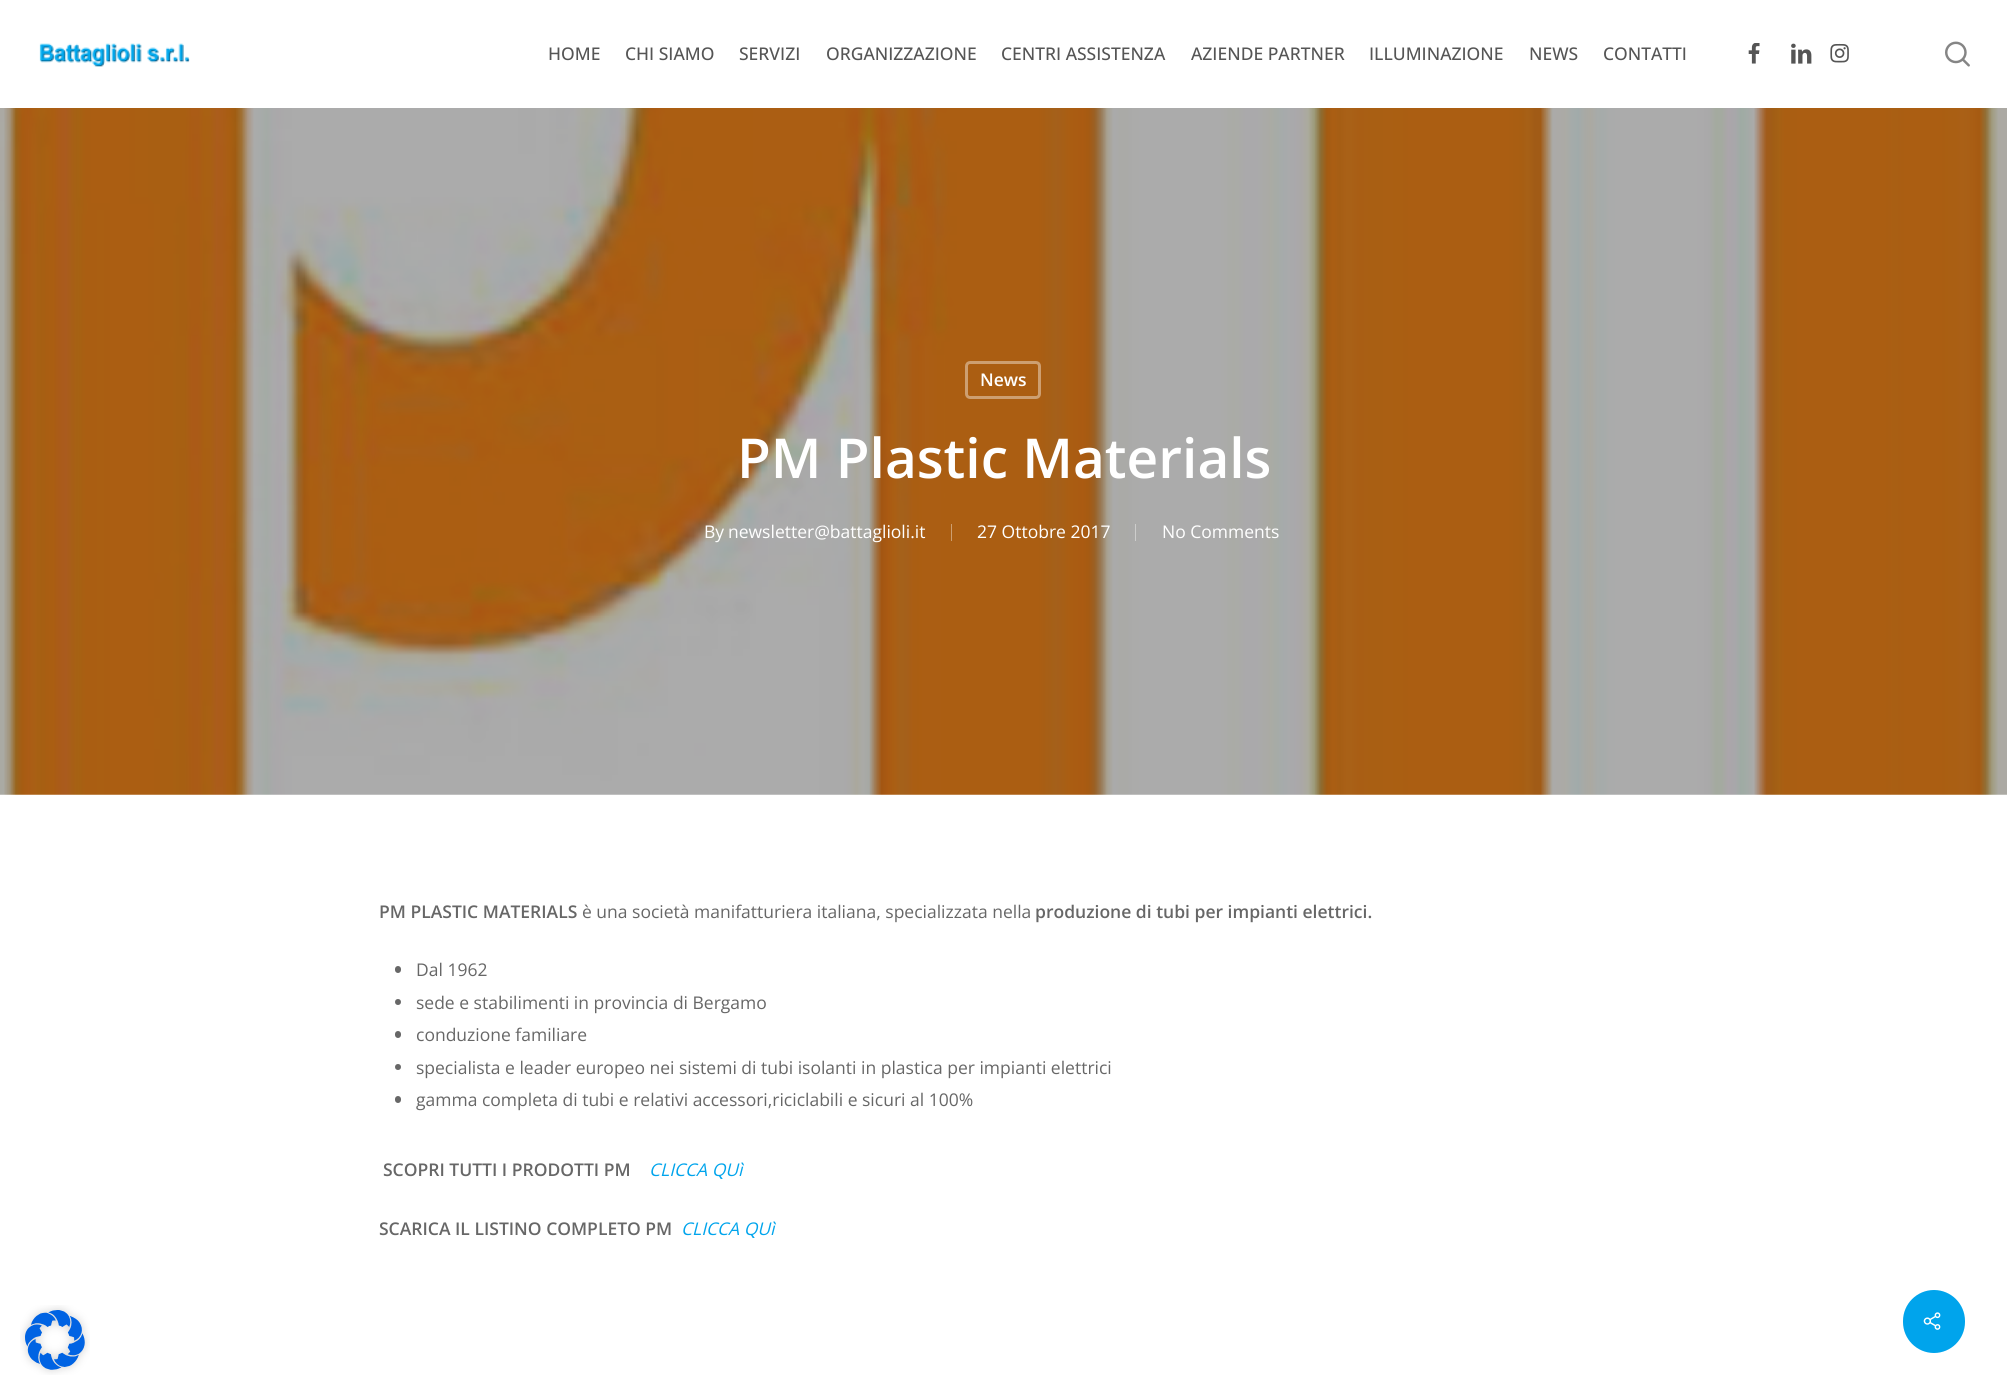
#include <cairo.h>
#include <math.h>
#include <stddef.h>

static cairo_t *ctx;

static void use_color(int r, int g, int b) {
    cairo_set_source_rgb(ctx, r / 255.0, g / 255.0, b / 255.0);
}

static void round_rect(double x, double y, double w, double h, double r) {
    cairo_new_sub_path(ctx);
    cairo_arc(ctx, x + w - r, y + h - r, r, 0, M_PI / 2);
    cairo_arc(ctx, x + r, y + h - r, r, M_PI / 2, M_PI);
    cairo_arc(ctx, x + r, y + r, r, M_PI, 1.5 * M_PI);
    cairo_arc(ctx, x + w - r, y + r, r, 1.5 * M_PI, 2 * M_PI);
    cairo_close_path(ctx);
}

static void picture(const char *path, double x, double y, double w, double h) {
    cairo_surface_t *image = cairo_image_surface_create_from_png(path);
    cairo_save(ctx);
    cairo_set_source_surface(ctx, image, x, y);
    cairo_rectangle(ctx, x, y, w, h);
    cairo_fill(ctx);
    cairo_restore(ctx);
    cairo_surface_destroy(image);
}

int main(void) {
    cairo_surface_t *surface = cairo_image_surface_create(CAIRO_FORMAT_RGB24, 2007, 1394);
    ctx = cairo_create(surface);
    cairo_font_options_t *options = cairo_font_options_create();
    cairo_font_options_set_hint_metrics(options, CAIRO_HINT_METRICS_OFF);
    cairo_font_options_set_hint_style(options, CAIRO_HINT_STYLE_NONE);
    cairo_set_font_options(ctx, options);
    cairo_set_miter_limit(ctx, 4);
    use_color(255, 255, 255);
    cairo_paint(ctx);
    picture("img1.png", 39, 43, 151, 24);
    cairo_select_font_face(ctx, "Open Sans Medium", CAIRO_FONT_SLANT_NORMAL, CAIRO_FONT_WEIGHT_NORMAL);
    cairo_set_font_size(ctx, 17.5);
    use_color(85, 85, 85);
    cairo_move_to(ctx, 548, 60);
    cairo_show_text(ctx, "HOME");
    cairo_move_to(ctx, 625, 60);
    cairo_show_text(ctx, "CHI SIAMO");
    cairo_move_to(ctx, 739, 60);
    cairo_show_text(ctx, "SERVIZI");
    cairo_move_to(ctx, 826, 60);
    cairo_show_text(ctx, "ORGANIZZAZIONE");
    cairo_move_to(ctx, 1001, 60);
    cairo_show_text(ctx, "CENTRI ASSISTENZA");
    cairo_move_to(ctx, 1191, 60);
    cairo_show_text(ctx, "AZIENDE PARTNER");
    cairo_move_to(ctx, 1369, 60);
    cairo_show_text(ctx, "ILLUMINAZIONE");
    cairo_move_to(ctx, 1529, 60);
    cairo_show_text(ctx, "NEWS");
    cairo_move_to(ctx, 1603, 60);
    cairo_show_text(ctx, "CONTATTI");
    picture("img2.png", 1748, 43, 12, 21);
    picture("img3.png", 1791, 43, 21, 21);
    picture("img4.png", 1830, 43, 19, 20);
    picture("img5.png", 1945, 41, 25, 26);
    picture("img6.png", 0, 108, 2007, 687);
    round_rect(966.5, 362.5, 73, 35, 3.5);
    use_color(205, 159, 113);
    cairo_set_line_width(ctx, 3);
    cairo_stroke(ctx);
    cairo_select_font_face(ctx, "Open Sans SemiBold", CAIRO_FONT_SLANT_NORMAL, CAIRO_FONT_WEIGHT_NORMAL);
    use_color(255, 255, 255);
    cairo_move_to(ctx, 980, 386);
    cairo_show_text(ctx, "News");
    cairo_set_font_size(ctx, 55);
    cairo_move_to(ctx, 737, 478);
    cairo_show_text(ctx, "PM Plastic Materials");
    cairo_select_font_face(ctx, "Open Sans", CAIRO_FONT_SLANT_NORMAL, CAIRO_FONT_WEIGHT_NORMAL);
    cairo_set_font_size(ctx, 17.5);
    cairo_move_to(ctx, 704, 538);
    cairo_show_text(ctx, "By");
    cairo_move_to(ctx, 728, 538);
    cairo_show_text(ctx, "newsletter@battaglioli.it");
    use_color(205, 159, 113);
    cairo_rectangle(ctx, 951, 524, 1, 17);
    cairo_fill(ctx);
    use_color(255, 255, 255);
    cairo_move_to(ctx, 977, 538);
    cairo_show_text(ctx, "27 Ottobre 2017");
    use_color(205, 205, 204);
    cairo_rectangle(ctx, 1135, 524, 1, 17);
    cairo_fill(ctx);
    use_color(255, 255, 255);
    cairo_move_to(ctx, 1162, 538);
    cairo_show_text(ctx, "No Comments");
    cairo_select_font_face(ctx, "Open Sans SemiBold", CAIRO_FONT_SLANT_NORMAL, CAIRO_FONT_WEIGHT_NORMAL);
    use_color(103, 103, 103);
    cairo_move_to(ctx, 379, 918);
    cairo_show_text(ctx, "PM PLASTIC MATERIALS");
    cairo_select_font_face(ctx, "Open Sans", CAIRO_FONT_SLANT_NORMAL, CAIRO_FONT_WEIGHT_NORMAL);
    cairo_move_to(ctx, 582, 918);
    cairo_show_text(ctx, "è una società manifatturiera italiana, specializzata nella");
    cairo_select_font_face(ctx, "Open Sans SemiBold", CAIRO_FONT_SLANT_NORMAL, CAIRO_FONT_WEIGHT_NORMAL);
    cairo_move_to(ctx, 1035, 918);
    cairo_show_text(ctx, "produzione di tubi per impianti elettrici.");
    round_rect(395, 966, 6, 7, 3);
    cairo_fill(ctx);
    cairo_select_font_face(ctx, "Open Sans", CAIRO_FONT_SLANT_NORMAL, CAIRO_FONT_WEIGHT_NORMAL);
    cairo_move_to(ctx, 416, 976);
    cairo_show_text(ctx, "Dal 1962");
    cairo_new_path(ctx);
    cairo_arc(ctx, 398, 1002, 3, 0, 2 * M_PI);
    cairo_fill(ctx);
    cairo_move_to(ctx, 416, 1009);
    cairo_show_text(ctx, "sede e stabilimenti in provincia di Bergamo");
    round_rect(395, 1031, 6, 7, 3);
    cairo_fill(ctx);
    cairo_move_to(ctx, 416, 1041);
    cairo_show_text(ctx, "conduzione familiare");
    cairo_new_path(ctx);
    cairo_arc(ctx, 398, 1067, 3, 0, 2 * M_PI);
    cairo_fill(ctx);
    cairo_move_to(ctx, 416, 1074);
    cairo_show_text(ctx, "specialista e leader europeo nei sistemi di tubi isolanti in plastica per impianti elettrici");
    round_rect(395, 1096, 6, 7, 3);
    cairo_fill(ctx);
    cairo_move_to(ctx, 416, 1106);
    cairo_show_text(ctx, "gamma completa di tubi e relativi accessori,riciclabili e sicuri al 100%");
    cairo_select_font_face(ctx, "Open Sans SemiBold", CAIRO_FONT_SLANT_NORMAL, CAIRO_FONT_WEIGHT_NORMAL);
    cairo_move_to(ctx, 383, 1176);
    cairo_show_text(ctx, "SCOPRI TUTTI I PRODOTTI PM");
    cairo_select_font_face(ctx, "Open Sans", CAIRO_FONT_SLANT_ITALIC, CAIRO_FONT_WEIGHT_NORMAL);
    use_color(0, 164, 236);
    cairo_move_to(ctx, 649, 1176);
    cairo_show_text(ctx, "CLICCA QUì");
    cairo_select_font_face(ctx, "Open Sans SemiBold", CAIRO_FONT_SLANT_NORMAL, CAIRO_FONT_WEIGHT_NORMAL);
    use_color(103, 103, 103);
    cairo_move_to(ctx, 379, 1235);
    cairo_show_text(ctx, "SCARICA IL LISTINO COMPLETO PM");
    cairo_select_font_face(ctx, "Open Sans", CAIRO_FONT_SLANT_ITALIC, CAIRO_FONT_WEIGHT_NORMAL);
    use_color(0, 164, 236);
    cairo_move_to(ctx, 681, 1235);
    cairo_show_text(ctx, "CLICCA QUì");
    round_rect(1903, 1290, 62, 63, 31);
    cairo_fill(ctx);
    picture("img7.png", 1923, 1312, 18, 18);
    picture("img8.png", 20, 1305, 70, 70);
    cairo_surface_write_to_png(surface, "result.png");
    cairo_font_options_destroy(options);
    cairo_destroy(ctx);
    cairo_surface_destroy(surface);
    return 0;
}
